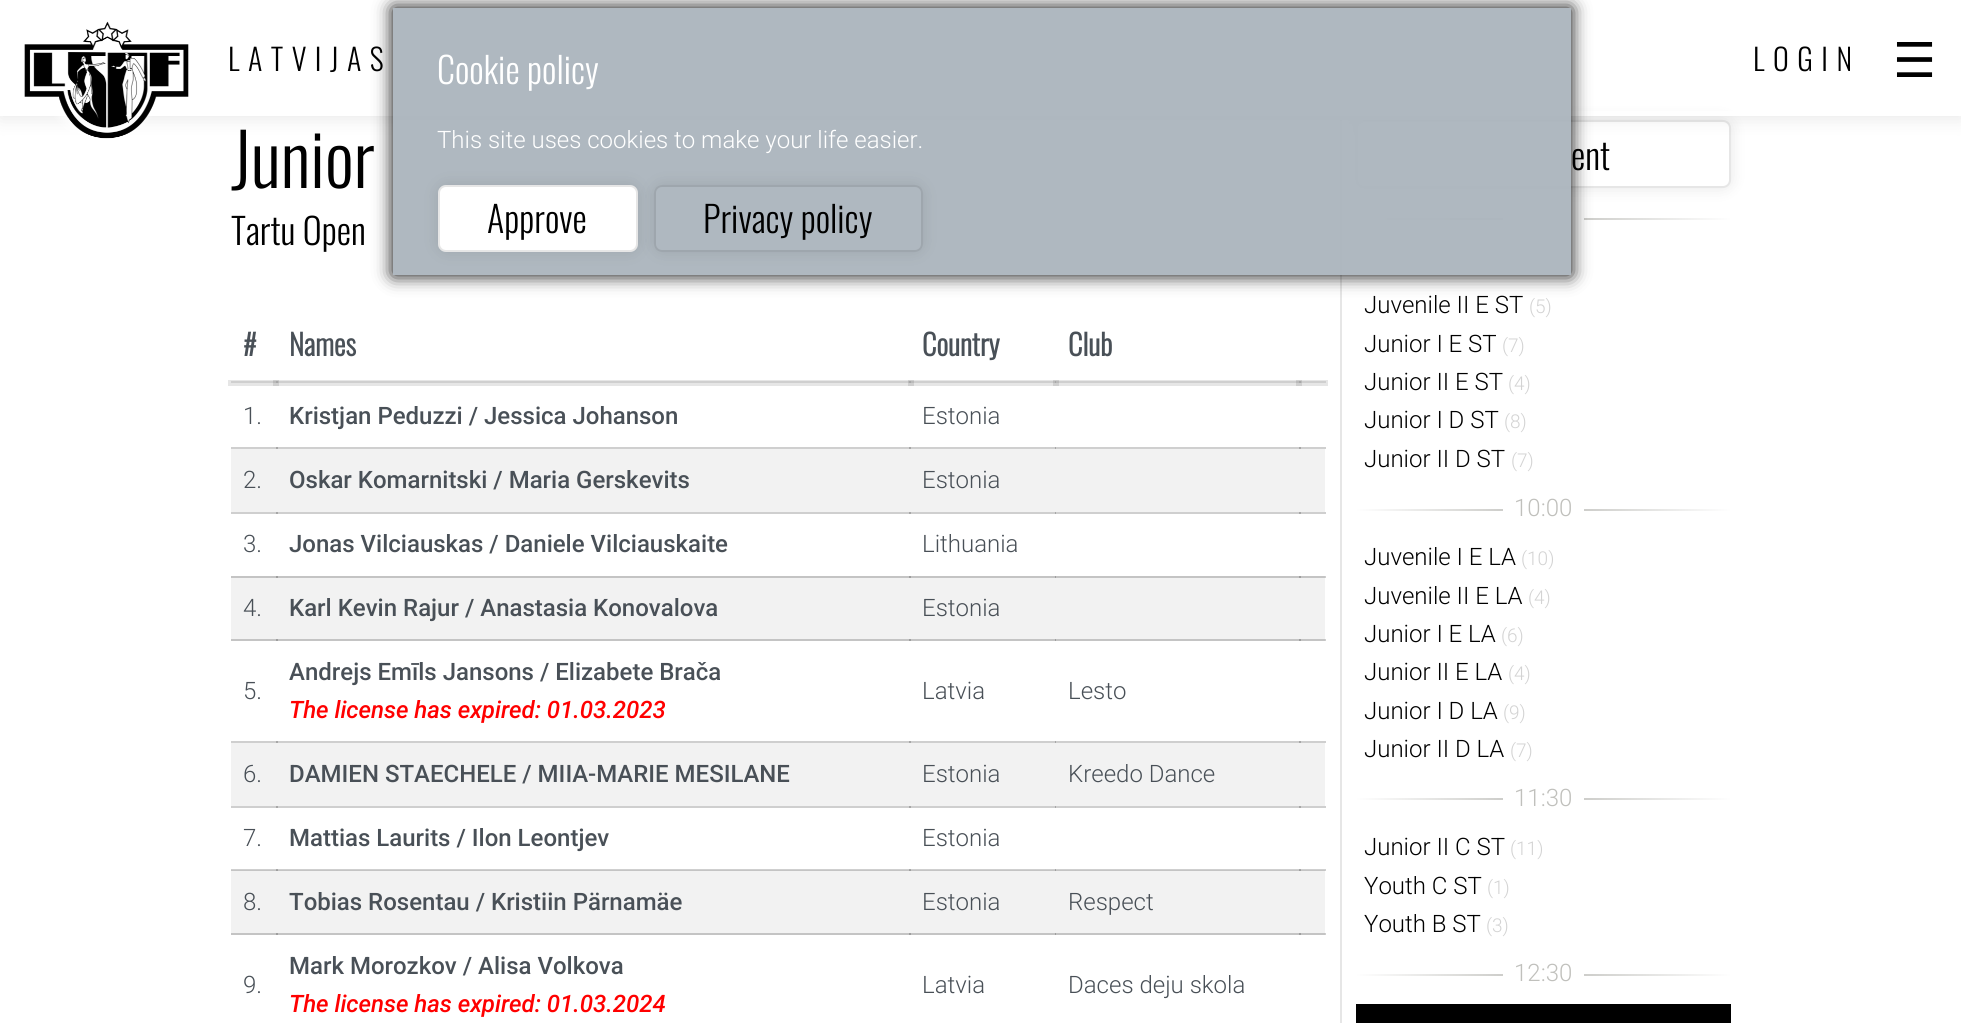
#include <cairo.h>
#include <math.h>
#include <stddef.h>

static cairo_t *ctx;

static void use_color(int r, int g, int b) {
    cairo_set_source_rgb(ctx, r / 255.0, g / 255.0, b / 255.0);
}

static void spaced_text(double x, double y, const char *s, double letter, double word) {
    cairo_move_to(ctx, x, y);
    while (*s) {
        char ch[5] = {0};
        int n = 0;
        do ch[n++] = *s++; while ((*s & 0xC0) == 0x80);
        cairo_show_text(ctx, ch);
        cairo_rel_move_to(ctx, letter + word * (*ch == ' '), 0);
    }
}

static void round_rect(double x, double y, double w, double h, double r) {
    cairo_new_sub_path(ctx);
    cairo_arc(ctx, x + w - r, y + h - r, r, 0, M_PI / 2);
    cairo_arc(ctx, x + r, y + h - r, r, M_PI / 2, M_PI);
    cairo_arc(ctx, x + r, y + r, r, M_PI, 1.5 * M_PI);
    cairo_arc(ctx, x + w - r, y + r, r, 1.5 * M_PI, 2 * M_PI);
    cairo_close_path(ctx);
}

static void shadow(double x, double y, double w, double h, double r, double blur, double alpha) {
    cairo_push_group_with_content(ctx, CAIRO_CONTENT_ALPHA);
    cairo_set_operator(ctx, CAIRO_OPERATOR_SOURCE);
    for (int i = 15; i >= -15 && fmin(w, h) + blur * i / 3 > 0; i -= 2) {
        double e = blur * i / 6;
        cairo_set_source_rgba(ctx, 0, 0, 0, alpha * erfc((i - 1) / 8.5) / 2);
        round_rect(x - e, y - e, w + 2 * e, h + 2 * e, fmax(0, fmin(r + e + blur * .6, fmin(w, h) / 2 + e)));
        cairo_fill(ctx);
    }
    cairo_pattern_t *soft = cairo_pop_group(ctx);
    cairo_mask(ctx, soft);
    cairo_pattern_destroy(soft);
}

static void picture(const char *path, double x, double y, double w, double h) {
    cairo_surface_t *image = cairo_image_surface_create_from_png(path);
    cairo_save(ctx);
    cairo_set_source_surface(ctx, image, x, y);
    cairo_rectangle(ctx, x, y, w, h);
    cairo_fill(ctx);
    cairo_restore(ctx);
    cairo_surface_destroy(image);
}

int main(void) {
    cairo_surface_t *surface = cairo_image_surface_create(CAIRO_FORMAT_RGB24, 1961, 1023);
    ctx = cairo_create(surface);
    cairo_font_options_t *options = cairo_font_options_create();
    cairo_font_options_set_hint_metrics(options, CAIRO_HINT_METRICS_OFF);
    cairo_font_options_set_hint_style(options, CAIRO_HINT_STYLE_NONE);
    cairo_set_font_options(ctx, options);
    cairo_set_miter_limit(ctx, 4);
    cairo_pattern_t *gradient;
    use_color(255, 255, 255);
    cairo_paint(ctx);
    use_color(230, 230, 230);
    cairo_rectangle(ctx, 228, 380, 1100, 6);
    cairo_fill(ctx);
    use_color(207, 207, 207);
    cairo_rectangle(ctx, 273, 380, 6, 6);
    cairo_fill(ctx);
    cairo_rectangle(ctx, 908, 380, 6, 6);
    cairo_fill(ctx);
    cairo_rectangle(ctx, 1053, 380, 6, 6);
    cairo_fill(ctx);
    cairo_rectangle(ctx, 1296, 380, 6, 6);
    cairo_fill(ctx);
    cairo_rectangle(ctx, 231, 381, 47, 2);
    cairo_fill(ctx);
    use_color(186, 186, 186);
    cairo_rectangle(ctx, 273, 381, 5, 2);
    cairo_fill(ctx);
    use_color(207, 207, 207);
    cairo_rectangle(ctx, 276, 381, 635, 2);
    cairo_fill(ctx);
    use_color(186, 186, 186);
    cairo_rectangle(ctx, 276, 381, 3, 2);
    cairo_fill(ctx);
    cairo_rectangle(ctx, 908, 381, 3, 2);
    cairo_fill(ctx);
    use_color(167, 167, 167);
    cairo_rectangle(ctx, 276, 381, 2, 2);
    cairo_fill(ctx);
    use_color(207, 207, 207);
    cairo_rectangle(ctx, 909, 381, 147, 2);
    cairo_fill(ctx);
    use_color(186, 186, 186);
    cairo_rectangle(ctx, 909, 381, 5, 2);
    cairo_fill(ctx);
    cairo_rectangle(ctx, 1053, 381, 3, 2);
    cairo_fill(ctx);
    use_color(167, 167, 167);
    cairo_rectangle(ctx, 909, 381, 2, 2);
    cairo_fill(ctx);
    use_color(207, 207, 207);
    cairo_rectangle(ctx, 1055, 381, 246, 2);
    cairo_fill(ctx);
    use_color(186, 186, 186);
    cairo_rectangle(ctx, 1055, 381, 4, 2);
    cairo_fill(ctx);
    cairo_rectangle(ctx, 1296, 381, 5, 2);
    cairo_fill(ctx);
    use_color(167, 167, 167);
    cairo_rectangle(ctx, 1055, 381, 1, 2);
    cairo_fill(ctx);
    use_color(207, 207, 207);
    cairo_rectangle(ctx, 231, 447, 1095, 2);
    cairo_fill(ctx);
    use_color(167, 167, 167);
    cairo_rectangle(ctx, 276, 447, 2, 2);
    cairo_fill(ctx);
    cairo_rectangle(ctx, 909, 447, 2, 2);
    cairo_fill(ctx);
    cairo_rectangle(ctx, 1055, 447, 1, 2);
    cairo_fill(ctx);
    use_color(207, 207, 207);
    cairo_rectangle(ctx, 231, 512, 1095, 2);
    cairo_fill(ctx);
    use_color(167, 167, 167);
    cairo_rectangle(ctx, 276, 512, 2, 2);
    cairo_fill(ctx);
    cairo_rectangle(ctx, 909, 512, 2, 2);
    cairo_fill(ctx);
    cairo_rectangle(ctx, 1055, 512, 1, 2);
    cairo_fill(ctx);
    use_color(207, 207, 207);
    cairo_rectangle(ctx, 1325, 576, 1, 2);
    cairo_fill(ctx);
    cairo_rectangle(ctx, 1325, 639, 1, 2);
    cairo_fill(ctx);
    cairo_rectangle(ctx, 231, 741, 1095, 2);
    cairo_fill(ctx);
    use_color(167, 167, 167);
    cairo_rectangle(ctx, 276, 741, 2, 2);
    cairo_fill(ctx);
    cairo_rectangle(ctx, 909, 741, 2, 2);
    cairo_fill(ctx);
    cairo_rectangle(ctx, 1055, 741, 1, 2);
    cairo_fill(ctx);
    use_color(207, 207, 207);
    cairo_rectangle(ctx, 231, 806, 1095, 2);
    cairo_fill(ctx);
    use_color(167, 167, 167);
    cairo_rectangle(ctx, 276, 806, 2, 2);
    cairo_fill(ctx);
    cairo_rectangle(ctx, 909, 806, 2, 2);
    cairo_fill(ctx);
    cairo_rectangle(ctx, 1055, 806, 1, 2);
    cairo_fill(ctx);
    use_color(207, 207, 207);
    cairo_rectangle(ctx, 231, 869, 1070, 1);
    cairo_fill(ctx);
    use_color(167, 167, 167);
    cairo_rectangle(ctx, 276, 869, 2, 1);
    cairo_fill(ctx);
    cairo_rectangle(ctx, 909, 869, 2, 1);
    cairo_fill(ctx);
    cairo_rectangle(ctx, 1055, 869, 1, 2);
    cairo_fill(ctx);
    use_color(207, 207, 207);
    cairo_rectangle(ctx, 1299, 869, 27, 2);
    cairo_fill(ctx);
    use_color(167, 167, 167);
    cairo_rectangle(ctx, 1299, 869, 2, 1);
    cairo_fill(ctx);
    use_color(207, 207, 207);
    cairo_rectangle(ctx, 1325, 933, 1, 2);
    cairo_fill(ctx);
    use_color(230, 230, 230);
    cairo_rectangle(ctx, 1340, 120, 2, 903);
    cairo_fill(ctx);
    use_color(0, 0, 0);
    shadow(1356, 120, 375, 68, 8, 7.5, 0.1);
    use_color(255, 255, 255);
    round_rect(1356, 120, 375, 68, 8);
    cairo_fill(ctx);
    round_rect(1357, 121, 373, 66, 7);
    cairo_set_source_rgba(ctx, 0, 0, 0, 0.1);
    cairo_stroke(ctx);
    cairo_save(ctx);
    cairo_set_fill_rule(ctx, CAIRO_FILL_RULE_EVEN_ODD);
    cairo_new_path(ctx);
    cairo_move_to(ctx, 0, 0);
    cairo_line_to(ctx, 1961, 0);
    cairo_line_to(ctx, 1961, 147);
    cairo_line_to(ctx, 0, 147);
    cairo_close_path(ctx);
    cairo_move_to(ctx, 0, 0);
    cairo_line_to(ctx, 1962, 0);
    cairo_line_to(ctx, 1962, 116);
    cairo_line_to(ctx, 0, 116);
    cairo_close_path(ctx);
    cairo_clip(ctx);
    use_color(136, 136, 136);
    shadow(0, 3, 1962, 116, 0, 9, 0.18);
    cairo_restore(ctx);
    cairo_set_source_rgba(ctx, 1, 1, 1, 0.95);
    cairo_rectangle(ctx, 0, 111, 1961, 5);
    cairo_fill(ctx);
    picture("img1.png", 24, 21, 165, 118);
    cairo_select_font_face(ctx, "Oswald Light", CAIRO_FONT_SLANT_NORMAL, CAIRO_FONT_WEIGHT_NORMAL);
    cairo_set_font_size(ctx, 30);
    use_color(0, 0, 0);
    spaced_text(228, 71, "LATVIJAS", 8.5, 0);
    spaced_text(1753, 71, "LOGIN", 8.5, 0);
    cairo_select_font_face(ctx, "DejaVu Sans", CAIRO_FONT_SLANT_NORMAL, CAIRO_FONT_WEIGHT_NORMAL);
    cairo_set_font_size(ctx, 48);
    spaced_text(1893, 77, "☰", 8.5, 0);
    gradient = cairo_pattern_create_linear(1356, 218, 1731, 218);
    cairo_pattern_add_color_stop_rgba(gradient, 0, 1, 1, 1, 1);
    cairo_pattern_add_color_stop_rgba(gradient, 0.5, 0.753, 0.753, 0.737, 1);
    cairo_pattern_add_color_stop_rgba(gradient, 1, 1, 1, 1, 1);
    cairo_set_source(ctx, gradient);
    cairo_pattern_destroy(gradient);
    cairo_rectangle(ctx, 1356, 218, 375, 2);
    cairo_fill(ctx);
    use_color(255, 255, 255);
    cairo_rectangle(ctx, 1503, 218, 81, 2);
    cairo_fill(ctx);
    cairo_save(ctx);
    cairo_set_fill_rule(ctx, CAIRO_FILL_RULE_EVEN_ODD);
    cairo_new_path(ctx);
    cairo_move_to(ctx, 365, 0);
    cairo_line_to(ctx, 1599, 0);
    cairo_line_to(ctx, 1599, 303);
    cairo_line_to(ctx, 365, 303);
    cairo_close_path(ctx);
    cairo_move_to(ctx, 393, 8);
    cairo_line_to(ctx, 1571, 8);
    cairo_line_to(ctx, 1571, 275);
    cairo_line_to(ctx, 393, 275);
    cairo_close_path(ctx);
    cairo_clip(ctx);
    use_color(0, 0, 0);
    shadow(393, 8, 1178, 267, 0, 9, 1);
    cairo_restore(ctx);
    cairo_set_source_rgba(ctx, 0.671, 0.71, 0.741, 0.95);
    cairo_rectangle(ctx, 393, 8, 1178, 267);
    cairo_fill(ctx);
    cairo_select_font_face(ctx, "Oswald Light", CAIRO_FONT_SLANT_NORMAL, CAIRO_FONT_WEIGHT_NORMAL);
    cairo_set_font_size(ctx, 36);
    use_color(255, 255, 255);
    cairo_move_to(ctx, 437, 84);
    cairo_show_text(ctx, "Cookie policy");
    cairo_select_font_face(ctx, "Roboto Light", CAIRO_FONT_SLANT_NORMAL, CAIRO_FONT_WEIGHT_NORMAL);
    cairo_set_font_size(ctx, 24);
    cairo_move_to(ctx, 437, 148);
    cairo_show_text(ctx, "This site uses cookies to make your life easier.");
    use_color(0, 0, 0);
    shadow(438, 185, 200, 67, 8, 7.5, 0.1);
    use_color(255, 255, 255);
    round_rect(438, 185, 200, 67, 8);
    cairo_fill(ctx);
    round_rect(439, 186, 198, 65, 7);
    cairo_set_source_rgba(ctx, 0, 0, 0, 0.1);
    cairo_stroke(ctx);
    cairo_select_font_face(ctx, "Oswald Light", CAIRO_FONT_SLANT_NORMAL, CAIRO_FONT_WEIGHT_NORMAL);
    cairo_set_font_size(ctx, 36);
    use_color(0, 0, 0);
    cairo_move_to(ctx, 487, 233);
    cairo_show_text(ctx, "Approve");
    cairo_save(ctx);
    cairo_set_fill_rule(ctx, CAIRO_FILL_RULE_EVEN_ODD);
    cairo_new_path(ctx);
    cairo_move_to(ctx, 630, 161);
    cairo_line_to(ctx, 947, 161);
    cairo_line_to(ctx, 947, 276);
    cairo_line_to(ctx, 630, 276);
    cairo_close_path(ctx);
    cairo_move_to(ctx, 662, 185);
    cairo_line_to(ctx, 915, 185);
    cairo_curve_to(ctx, 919.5, 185, 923, 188.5, 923, 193);
    cairo_line_to(ctx, 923, 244);
    cairo_curve_to(ctx, 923, 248.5, 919.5, 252, 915, 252);
    cairo_line_to(ctx, 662, 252);
    cairo_curve_to(ctx, 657.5, 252, 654, 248.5, 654, 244);
    cairo_line_to(ctx, 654, 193);
    cairo_curve_to(ctx, 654, 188.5, 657.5, 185, 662, 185);
    cairo_close_path(ctx);
    cairo_clip(ctx);
    use_color(0, 0, 0);
    shadow(654, 185, 269, 67, 8, 7.5, 0.1);
    cairo_restore(ctx);
    round_rect(655, 186, 267, 65, 7);
    cairo_set_source_rgba(ctx, 0, 0, 0, 0.1);
    cairo_stroke(ctx);
    use_color(0, 0, 0);
    cairo_move_to(ctx, 703, 233);
    cairo_show_text(ctx, "Privacy policy");
    cairo_set_font_size(ctx, 72);
    cairo_move_to(ctx, 231, 188);
    cairo_show_text(ctx, "Junior");
    cairo_set_font_size(ctx, 36);
    cairo_move_to(ctx, 231, 245);
    cairo_show_text(ctx, "Tartu Open");
    cairo_select_font_face(ctx, "Oswald", CAIRO_FONT_SLANT_NORMAL, CAIRO_FONT_WEIGHT_BOLD);
    cairo_set_font_size(ctx, 29);
    use_color(73, 80, 87);
    cairo_move_to(ctx, 243, 356);
    cairo_show_text(ctx, "#");
    cairo_move_to(ctx, 289, 356);
    cairo_show_text(ctx, "Names");
    cairo_move_to(ctx, 922, 356);
    cairo_show_text(ctx, "Country");
    cairo_move_to(ctx, 1068, 356);
    cairo_show_text(ctx, "Club");
    use_color(207, 207, 207);
    cairo_rectangle(ctx, 1299, 381, 27, 2);
    cairo_fill(ctx);
    use_color(186, 186, 186);
    cairo_rectangle(ctx, 1299, 381, 3, 2);
    cairo_fill(ctx);
    use_color(167, 167, 167);
    cairo_rectangle(ctx, 1299, 381, 2, 2);
    cairo_fill(ctx);
    cairo_select_font_face(ctx, "Roboto Light", CAIRO_FONT_SLANT_NORMAL, CAIRO_FONT_WEIGHT_NORMAL);
    cairo_set_font_size(ctx, 24);
    use_color(73, 80, 87);
    cairo_move_to(ctx, 243, 424);
    cairo_show_text(ctx, "1.");
    cairo_select_font_face(ctx, "Roboto Medium", CAIRO_FONT_SLANT_NORMAL, CAIRO_FONT_WEIGHT_NORMAL);
    cairo_move_to(ctx, 289, 424);
    cairo_show_text(ctx, "Kristjan Peduzzi / Jessica Johanson");
    cairo_select_font_face(ctx, "Roboto Light", CAIRO_FONT_SLANT_NORMAL, CAIRO_FONT_WEIGHT_NORMAL);
    cairo_move_to(ctx, 922, 424);
    cairo_show_text(ctx, "Estonia");
    use_color(167, 167, 167);
    cairo_rectangle(ctx, 1299, 447, 2, 2);
    cairo_fill(ctx);
    use_color(242, 242, 242);
    cairo_rectangle(ctx, 231, 449, 1094, 63);
    cairo_fill(ctx);
    use_color(73, 80, 87);
    cairo_move_to(ctx, 243, 488);
    cairo_show_text(ctx, "2.");
    cairo_select_font_face(ctx, "Roboto Medium", CAIRO_FONT_SLANT_NORMAL, CAIRO_FONT_WEIGHT_NORMAL);
    cairo_move_to(ctx, 289, 488);
    cairo_show_text(ctx, "Oskar Komarnitski / Maria Gerskevits");
    cairo_select_font_face(ctx, "Roboto Light", CAIRO_FONT_SLANT_NORMAL, CAIRO_FONT_WEIGHT_NORMAL);
    cairo_move_to(ctx, 922, 488);
    cairo_show_text(ctx, "Estonia");
    use_color(167, 167, 167);
    cairo_rectangle(ctx, 1299, 512, 2, 2);
    cairo_fill(ctx);
    use_color(73, 80, 87);
    cairo_move_to(ctx, 243, 552);
    cairo_show_text(ctx, "3.");
    cairo_select_font_face(ctx, "Roboto Medium", CAIRO_FONT_SLANT_NORMAL, CAIRO_FONT_WEIGHT_NORMAL);
    cairo_move_to(ctx, 289, 552);
    cairo_show_text(ctx, "Jonas Vilciauskas / Daniele Vilciauskaite");
    cairo_select_font_face(ctx, "Roboto Light", CAIRO_FONT_SLANT_NORMAL, CAIRO_FONT_WEIGHT_NORMAL);
    cairo_move_to(ctx, 922, 552);
    cairo_show_text(ctx, "Lithuania");
    use_color(242, 242, 242);
    cairo_rectangle(ctx, 231, 578, 1094, 61);
    cairo_fill(ctx);
    use_color(196, 196, 196);
    cairo_rectangle(ctx, 231, 576, 1094, 2);
    cairo_fill(ctx);
    cairo_rectangle(ctx, 231, 639, 1094, 2);
    cairo_fill(ctx);
    use_color(73, 80, 87);
    cairo_move_to(ctx, 243, 616);
    cairo_show_text(ctx, "4.");
    use_color(158, 158, 158);
    cairo_rectangle(ctx, 276, 576, 2, 2);
    cairo_fill(ctx);
    cairo_rectangle(ctx, 909, 576, 2, 2);
    cairo_fill(ctx);
    cairo_rectangle(ctx, 276, 639, 2, 2);
    cairo_fill(ctx);
    cairo_rectangle(ctx, 909, 639, 2, 2);
    cairo_fill(ctx);
    cairo_select_font_face(ctx, "Roboto Medium", CAIRO_FONT_SLANT_NORMAL, CAIRO_FONT_WEIGHT_NORMAL);
    use_color(73, 80, 87);
    cairo_move_to(ctx, 289, 616);
    cairo_show_text(ctx, "Karl Kevin Rajur / Anastasia Konovalova");
    use_color(158, 158, 158);
    cairo_rectangle(ctx, 1055, 576, 1, 2);
    cairo_fill(ctx);
    cairo_rectangle(ctx, 1055, 639, 1, 2);
    cairo_fill(ctx);
    cairo_select_font_face(ctx, "Roboto Light", CAIRO_FONT_SLANT_NORMAL, CAIRO_FONT_WEIGHT_NORMAL);
    use_color(73, 80, 87);
    cairo_move_to(ctx, 922, 616);
    cairo_show_text(ctx, "Estonia");
    use_color(158, 158, 158);
    cairo_rectangle(ctx, 1299, 576, 2, 2);
    cairo_fill(ctx);
    cairo_rectangle(ctx, 1299, 639, 2, 2);
    cairo_fill(ctx);
    use_color(73, 80, 87);
    cairo_move_to(ctx, 243, 699);
    cairo_show_text(ctx, "5.");
    cairo_select_font_face(ctx, "Roboto Medium", CAIRO_FONT_SLANT_NORMAL, CAIRO_FONT_WEIGHT_NORMAL);
    cairo_move_to(ctx, 289, 680);
    cairo_show_text(ctx, "Andrejs Emīls Jansons / Elizabete Brača");
    cairo_select_font_face(ctx, "Roboto Medium", CAIRO_FONT_SLANT_ITALIC, CAIRO_FONT_WEIGHT_NORMAL);
    use_color(255, 0, 0);
    cairo_move_to(ctx, 289, 718);
    cairo_show_text(ctx, "The license has expired: 01.03.2023");
    cairo_select_font_face(ctx, "Roboto Light", CAIRO_FONT_SLANT_NORMAL, CAIRO_FONT_WEIGHT_NORMAL);
    use_color(73, 80, 87);
    cairo_move_to(ctx, 922, 699);
    cairo_show_text(ctx, "Latvia");
    cairo_move_to(ctx, 1068, 699);
    cairo_show_text(ctx, "Lesto");
    use_color(167, 167, 167);
    cairo_rectangle(ctx, 1299, 741, 2, 2);
    cairo_fill(ctx);
    use_color(242, 242, 242);
    cairo_rectangle(ctx, 231, 743, 1094, 63);
    cairo_fill(ctx);
    use_color(73, 80, 87);
    cairo_move_to(ctx, 243, 782);
    cairo_show_text(ctx, "6.");
    cairo_select_font_face(ctx, "Roboto Medium", CAIRO_FONT_SLANT_NORMAL, CAIRO_FONT_WEIGHT_NORMAL);
    cairo_move_to(ctx, 289, 782);
    cairo_show_text(ctx, "DAMIEN STAECHELE / MIIA-MARIE MESILANE");
    cairo_select_font_face(ctx, "Roboto Light", CAIRO_FONT_SLANT_NORMAL, CAIRO_FONT_WEIGHT_NORMAL);
    cairo_move_to(ctx, 922, 782);
    cairo_show_text(ctx, "Estonia");
    cairo_move_to(ctx, 1068, 782);
    cairo_show_text(ctx, "Kreedo Dance");
    use_color(167, 167, 167);
    cairo_rectangle(ctx, 1299, 806, 2, 2);
    cairo_fill(ctx);
    use_color(73, 80, 87);
    cairo_move_to(ctx, 243, 846);
    cairo_show_text(ctx, "7.");
    cairo_select_font_face(ctx, "Roboto Medium", CAIRO_FONT_SLANT_NORMAL, CAIRO_FONT_WEIGHT_NORMAL);
    cairo_move_to(ctx, 289, 846);
    cairo_show_text(ctx, "Mattias Laurits / Ilon Leontjev");
    cairo_select_font_face(ctx, "Roboto Light", CAIRO_FONT_SLANT_NORMAL, CAIRO_FONT_WEIGHT_NORMAL);
    cairo_move_to(ctx, 922, 846);
    cairo_show_text(ctx, "Estonia");
    use_color(242, 242, 242);
    cairo_rectangle(ctx, 231, 871, 1094, 62);
    cairo_fill(ctx);
    use_color(196, 196, 196);
    cairo_rectangle(ctx, 231, 870, 1094, 1);
    cairo_fill(ctx);
    cairo_rectangle(ctx, 231, 933, 1094, 2);
    cairo_fill(ctx);
    use_color(73, 80, 87);
    cairo_move_to(ctx, 243, 910);
    cairo_show_text(ctx, "8.");
    use_color(158, 158, 158);
    cairo_rectangle(ctx, 276, 870, 2, 1);
    cairo_fill(ctx);
    cairo_rectangle(ctx, 909, 870, 2, 1);
    cairo_fill(ctx);
    cairo_rectangle(ctx, 276, 933, 2, 2);
    cairo_fill(ctx);
    cairo_rectangle(ctx, 909, 933, 2, 2);
    cairo_fill(ctx);
    cairo_select_font_face(ctx, "Roboto Medium", CAIRO_FONT_SLANT_NORMAL, CAIRO_FONT_WEIGHT_NORMAL);
    use_color(73, 80, 87);
    cairo_move_to(ctx, 289, 910);
    cairo_show_text(ctx, "Tobias Rosentau / Kristiin Pärnamäe");
    use_color(158, 158, 158);
    cairo_rectangle(ctx, 1055, 870, 1, 1);
    cairo_fill(ctx);
    cairo_rectangle(ctx, 1055, 933, 1, 2);
    cairo_fill(ctx);
    cairo_select_font_face(ctx, "Roboto Light", CAIRO_FONT_SLANT_NORMAL, CAIRO_FONT_WEIGHT_NORMAL);
    use_color(73, 80, 87);
    cairo_move_to(ctx, 922, 910);
    cairo_show_text(ctx, "Estonia");
    cairo_move_to(ctx, 1068, 910);
    cairo_show_text(ctx, "Respect");
    use_color(158, 158, 158);
    cairo_rectangle(ctx, 1299, 870, 2, 1);
    cairo_fill(ctx);
    cairo_rectangle(ctx, 1299, 933, 2, 2);
    cairo_fill(ctx);
    use_color(73, 80, 87);
    cairo_move_to(ctx, 243, 993);
    cairo_show_text(ctx, "9.");
    cairo_select_font_face(ctx, "Roboto Medium", CAIRO_FONT_SLANT_NORMAL, CAIRO_FONT_WEIGHT_NORMAL);
    cairo_move_to(ctx, 289, 974);
    cairo_show_text(ctx, "Mark Morozkov / Alisa Volkova");
    cairo_select_font_face(ctx, "Roboto Medium", CAIRO_FONT_SLANT_ITALIC, CAIRO_FONT_WEIGHT_NORMAL);
    use_color(255, 0, 0);
    cairo_move_to(ctx, 289, 1012);
    cairo_show_text(ctx, "The license has expired: 01.03.2024");
    cairo_select_font_face(ctx, "Roboto Light", CAIRO_FONT_SLANT_NORMAL, CAIRO_FONT_WEIGHT_NORMAL);
    use_color(73, 80, 87);
    cairo_move_to(ctx, 922, 993);
    cairo_show_text(ctx, "Latvia");
    cairo_move_to(ctx, 1068, 993);
    cairo_show_text(ctx, "Daces deju skola");
    cairo_select_font_face(ctx, "Oswald Light", CAIRO_FONT_SLANT_NORMAL, CAIRO_FONT_WEIGHT_NORMAL);
    cairo_set_font_size(ctx, 36);
    use_color(0, 0, 0);
    cairo_move_to(ctx, 1571, 170);
    cairo_show_text(ctx, "ent");
    cairo_select_font_face(ctx, "Roboto Light", CAIRO_FONT_SLANT_NORMAL, CAIRO_FONT_WEIGHT_NORMAL);
    cairo_set_font_size(ctx, 24);
    cairo_move_to(ctx, 1364, 313);
    cairo_show_text(ctx, "Juvenile II E ST");
    cairo_set_font_size(ctx, 19);
    use_color(211, 211, 211);
    cairo_move_to(ctx, 1529, 313);
    cairo_show_text(ctx, "(5)");
    cairo_set_font_size(ctx, 24);
    use_color(0, 0, 0);
    cairo_move_to(ctx, 1364, 352);
    cairo_show_text(ctx, "Junior I E ST");
    cairo_set_font_size(ctx, 19);
    use_color(211, 211, 211);
    cairo_move_to(ctx, 1502, 352);
    cairo_show_text(ctx, "(7)");
    cairo_set_font_size(ctx, 24);
    use_color(0, 0, 0);
    cairo_move_to(ctx, 1364, 390);
    cairo_show_text(ctx, "Junior II E ST");
    cairo_set_font_size(ctx, 19);
    use_color(211, 211, 211);
    cairo_move_to(ctx, 1508, 390);
    cairo_show_text(ctx, "(4)");
    cairo_set_font_size(ctx, 24);
    use_color(0, 0, 0);
    cairo_move_to(ctx, 1364, 428);
    cairo_show_text(ctx, "Junior I D ST");
    cairo_set_font_size(ctx, 19);
    use_color(211, 211, 211);
    cairo_move_to(ctx, 1504, 428);
    cairo_show_text(ctx, "(8)");
    cairo_set_font_size(ctx, 24);
    use_color(0, 0, 0);
    cairo_move_to(ctx, 1364, 467);
    cairo_show_text(ctx, "Junior II D ST");
    cairo_set_font_size(ctx, 19);
    use_color(211, 211, 211);
    cairo_move_to(ctx, 1511, 467);
    cairo_show_text(ctx, "(7)");
    gradient = cairo_pattern_create_linear(1356, 509, 1731, 509);
    cairo_pattern_add_color_stop_rgba(gradient, 0, 1, 1, 1, 1);
    cairo_pattern_add_color_stop_rgba(gradient, 0.5, 0.753, 0.753, 0.737, 1);
    cairo_pattern_add_color_stop_rgba(gradient, 1, 1, 1, 1, 1);
    cairo_set_source(ctx, gradient);
    cairo_pattern_destroy(gradient);
    cairo_rectangle(ctx, 1356, 509, 375, 2);
    cairo_fill(ctx);
    use_color(255, 255, 255);
    cairo_rectangle(ctx, 1503, 509, 81, 2);
    cairo_fill(ctx);
    cairo_set_font_size(ctx, 24);
    use_color(192, 192, 188);
    cairo_move_to(ctx, 1514, 516);
    cairo_show_text(ctx, "10:00");
    use_color(0, 0, 0);
    cairo_move_to(ctx, 1364, 565);
    cairo_show_text(ctx, "Juvenile I E LA");
    cairo_set_font_size(ctx, 19);
    use_color(211, 211, 211);
    cairo_move_to(ctx, 1521, 565);
    cairo_show_text(ctx, "(10)");
    cairo_set_font_size(ctx, 24);
    use_color(0, 0, 0);
    cairo_move_to(ctx, 1364, 604);
    cairo_show_text(ctx, "Juvenile II E LA");
    cairo_set_font_size(ctx, 19);
    use_color(211, 211, 211);
    cairo_move_to(ctx, 1528, 604);
    cairo_show_text(ctx, "(4)");
    cairo_set_font_size(ctx, 24);
    use_color(0, 0, 0);
    cairo_move_to(ctx, 1364, 642);
    cairo_show_text(ctx, "Junior I E LA");
    cairo_set_font_size(ctx, 19);
    use_color(211, 211, 211);
    cairo_move_to(ctx, 1501, 642);
    cairo_show_text(ctx, "(6)");
    cairo_set_font_size(ctx, 24);
    use_color(0, 0, 0);
    cairo_move_to(ctx, 1364, 680);
    cairo_show_text(ctx, "Junior II E LA");
    cairo_set_font_size(ctx, 19);
    use_color(211, 211, 211);
    cairo_move_to(ctx, 1508, 680);
    cairo_show_text(ctx, "(4)");
    cairo_set_font_size(ctx, 24);
    use_color(0, 0, 0);
    cairo_move_to(ctx, 1364, 719);
    cairo_show_text(ctx, "Junior I D LA");
    cairo_set_font_size(ctx, 19);
    use_color(211, 211, 211);
    cairo_move_to(ctx, 1503, 719);
    cairo_show_text(ctx, "(9)");
    cairo_set_font_size(ctx, 24);
    use_color(0, 0, 0);
    cairo_move_to(ctx, 1364, 757);
    cairo_show_text(ctx, "Junior II D LA");
    cairo_set_font_size(ctx, 19);
    use_color(211, 211, 211);
    cairo_move_to(ctx, 1510, 757);
    cairo_show_text(ctx, "(7)");
    gradient = cairo_pattern_create_linear(1356, 799, 1731, 799);
    cairo_pattern_add_color_stop_rgba(gradient, 0, 1, 1, 1, 1);
    cairo_pattern_add_color_stop_rgba(gradient, 0.5, 0.753, 0.753, 0.737, 1);
    cairo_pattern_add_color_stop_rgba(gradient, 1, 1, 1, 1, 1);
    cairo_set_source(ctx, gradient);
    cairo_pattern_destroy(gradient);
    cairo_rectangle(ctx, 1356, 798, 375, 2);
    cairo_fill(ctx);
    use_color(255, 255, 255);
    cairo_rectangle(ctx, 1503, 798, 81, 2);
    cairo_fill(ctx);
    cairo_set_font_size(ctx, 24);
    use_color(192, 192, 188);
    cairo_move_to(ctx, 1514, 806);
    cairo_show_text(ctx, "11:30");
    use_color(0, 0, 0);
    cairo_move_to(ctx, 1364, 855);
    cairo_show_text(ctx, "Junior II C ST");
    cairo_set_font_size(ctx, 19);
    use_color(211, 211, 211);
    cairo_move_to(ctx, 1510, 855);
    cairo_show_text(ctx, "(11)");
    cairo_set_font_size(ctx, 24);
    use_color(0, 0, 0);
    cairo_move_to(ctx, 1364, 894);
    cairo_show_text(ctx, "Youth C ST");
    cairo_set_font_size(ctx, 19);
    use_color(211, 211, 211);
    cairo_move_to(ctx, 1487, 894);
    cairo_show_text(ctx, "(1)");
    cairo_set_font_size(ctx, 24);
    use_color(0, 0, 0);
    cairo_move_to(ctx, 1364, 932);
    cairo_show_text(ctx, "Youth B ST");
    cairo_set_font_size(ctx, 19);
    use_color(211, 211, 211);
    cairo_move_to(ctx, 1486, 932);
    cairo_show_text(ctx, "(3)");
    gradient = cairo_pattern_create_linear(1356, 974, 1731, 974);
    cairo_pattern_add_color_stop_rgba(gradient, 0, 1, 1, 1, 1);
    cairo_pattern_add_color_stop_rgba(gradient, 0.5, 0.753, 0.753, 0.737, 1);
    cairo_pattern_add_color_stop_rgba(gradient, 1, 1, 1, 1, 1);
    cairo_set_source(ctx, gradient);
    cairo_pattern_destroy(gradient);
    cairo_rectangle(ctx, 1356, 974, 375, 2);
    cairo_fill(ctx);
    use_color(255, 255, 255);
    cairo_rectangle(ctx, 1503, 974, 81, 2);
    cairo_fill(ctx);
    cairo_set_font_size(ctx, 24);
    use_color(192, 192, 188);
    cairo_move_to(ctx, 1514, 981);
    cairo_show_text(ctx, "12:30");
    use_color(0, 0, 0);
    cairo_rectangle(ctx, 1356, 1004, 375, 19);
    cairo_fill(ctx);
    cairo_surface_write_to_png(surface, "result.png");
    cairo_font_options_destroy(options);
    cairo_destroy(ctx);
    cairo_surface_destroy(surface);
    return 0;
}
